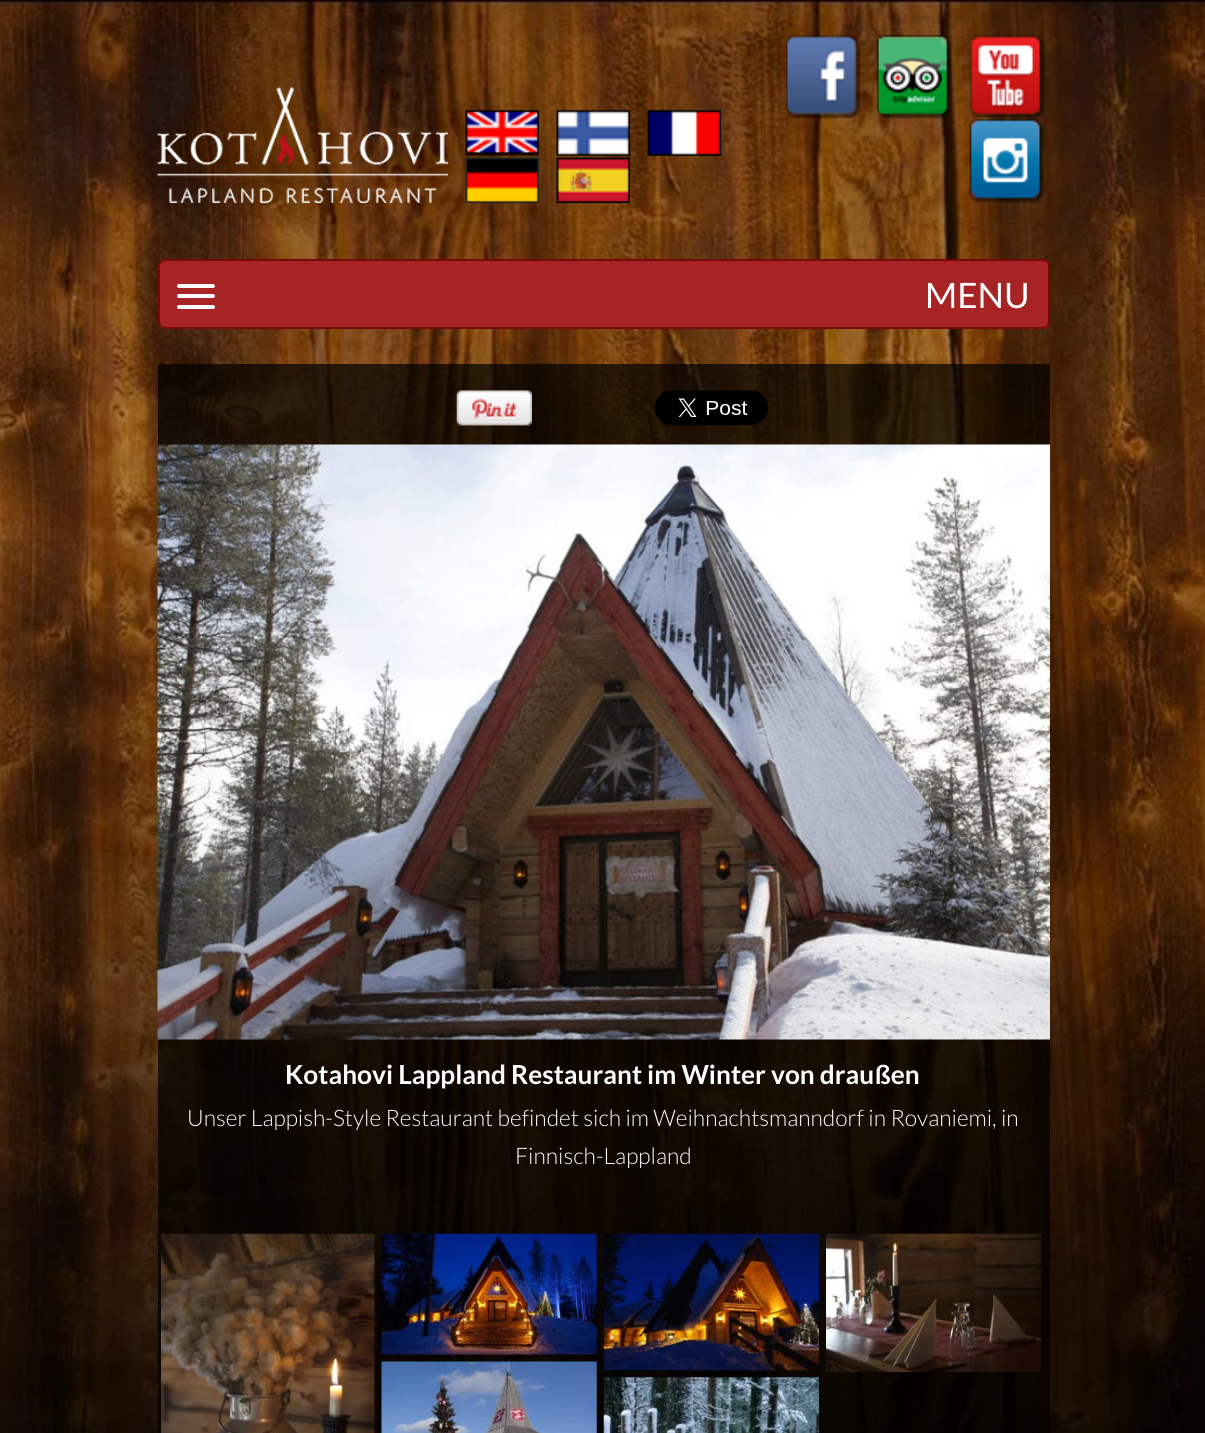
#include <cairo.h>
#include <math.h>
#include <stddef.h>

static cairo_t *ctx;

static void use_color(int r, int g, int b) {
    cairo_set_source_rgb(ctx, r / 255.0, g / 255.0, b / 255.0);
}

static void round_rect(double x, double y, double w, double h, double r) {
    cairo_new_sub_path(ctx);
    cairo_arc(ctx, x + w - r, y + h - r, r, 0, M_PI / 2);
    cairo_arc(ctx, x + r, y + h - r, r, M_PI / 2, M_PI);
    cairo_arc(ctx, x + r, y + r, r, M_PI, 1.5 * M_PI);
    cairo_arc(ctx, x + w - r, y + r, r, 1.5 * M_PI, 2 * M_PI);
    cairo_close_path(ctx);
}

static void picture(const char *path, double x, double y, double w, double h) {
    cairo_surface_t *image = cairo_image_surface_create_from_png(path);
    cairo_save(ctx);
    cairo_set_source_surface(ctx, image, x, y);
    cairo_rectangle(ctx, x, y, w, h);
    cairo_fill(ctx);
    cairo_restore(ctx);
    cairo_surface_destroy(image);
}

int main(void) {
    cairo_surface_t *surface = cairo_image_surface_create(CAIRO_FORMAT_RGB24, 1205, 1433);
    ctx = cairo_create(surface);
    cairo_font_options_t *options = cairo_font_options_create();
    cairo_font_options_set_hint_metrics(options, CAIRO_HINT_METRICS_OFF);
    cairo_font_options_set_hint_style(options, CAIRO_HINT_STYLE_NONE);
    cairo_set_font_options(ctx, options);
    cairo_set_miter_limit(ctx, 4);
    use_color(255, 255, 255);
    cairo_paint(ctx);
    picture("img1.png", 0, 0, 1205, 1433);
    picture("img2.png", 157, 87, 291, 116);
    picture("img3.png", 465, 110, 74, 46);
    picture("img4.png", 556, 110, 74, 46);
    picture("img5.png", 647, 110, 74, 46);
    picture("img6.png", 465, 157, 74, 46);
    picture("img7.png", 556, 157, 74, 46);
    picture("img8.png", 785, 35, 76, 84);
    picture("img9.png", 876, 35, 76, 84);
    picture("img10.png", 969, 35, 76, 84);
    picture("img11.png", 969, 119, 76, 84);
    use_color(167, 35, 36);
    round_rect(159, 260, 890, 68, 6);
    cairo_fill_preserve(ctx);
    use_color(119, 9, 10);
    cairo_stroke(ctx);
    use_color(255, 255, 255);
    round_rect(177, 284, 38, 4, 2);
    cairo_fill(ctx);
    round_rect(177, 294, 38, 4, 2);
    cairo_fill(ctx);
    round_rect(177, 305, 38, 4, 2);
    cairo_fill(ctx);
    cairo_select_font_face(ctx, "Lato", CAIRO_FONT_SLANT_NORMAL, CAIRO_FONT_WEIGHT_NORMAL);
    cairo_set_font_size(ctx, 35);
    cairo_move_to(ctx, 925, 308);
    cairo_show_text(ctx, "MENU");
    cairo_set_source_rgba(ctx, 0, 0, 0, 0.7);
    cairo_rectangle(ctx, 158, 364, 892, 1069);
    cairo_fill(ctx);
    picture("img12.png", 456, 390, 76, 36);
    picture("img13.png", 654, 390, 114, 35);
    picture("img14.png", 157, 444, 893, 596);
    cairo_select_font_face(ctx, "Lato", CAIRO_FONT_SLANT_NORMAL, CAIRO_FONT_WEIGHT_BOLD);
    cairo_set_font_size(ctx, 26.25);
    use_color(255, 255, 255);
    cairo_move_to(ctx, 285, 1084);
    cairo_show_text(ctx, "Kotahovi Lappland Restaurant im Winter von draußen");
    cairo_select_font_face(ctx, "Lato Light", CAIRO_FONT_SLANT_NORMAL, CAIRO_FONT_WEIGHT_NORMAL);
    cairo_set_font_size(ctx, 22.75);
    cairo_move_to(ctx, 187, 1126);
    cairo_show_text(ctx, "Unser Lappish-Style Restaurant befindet sich im Weihnachtsmanndorf in Rovaniemi, in");
    cairo_move_to(ctx, 515, 1164);
    cairo_show_text(ctx, "Finnisch-Lappland");
    picture("img15.png", 161, 1233, 214, 200);
    picture("img16.png", 381, 1233, 216, 122);
    picture("img17.png", 603, 1233, 216, 138);
    picture("img18.png", 826, 1233, 216, 139);
    picture("img19.png", 381, 1361, 216, 72);
    picture("img20.png", 603, 1377, 216, 56);
    cairo_surface_write_to_png(surface, "result.png");
    cairo_font_options_destroy(options);
    cairo_destroy(ctx);
    cairo_surface_destroy(surface);
    return 0;
}
